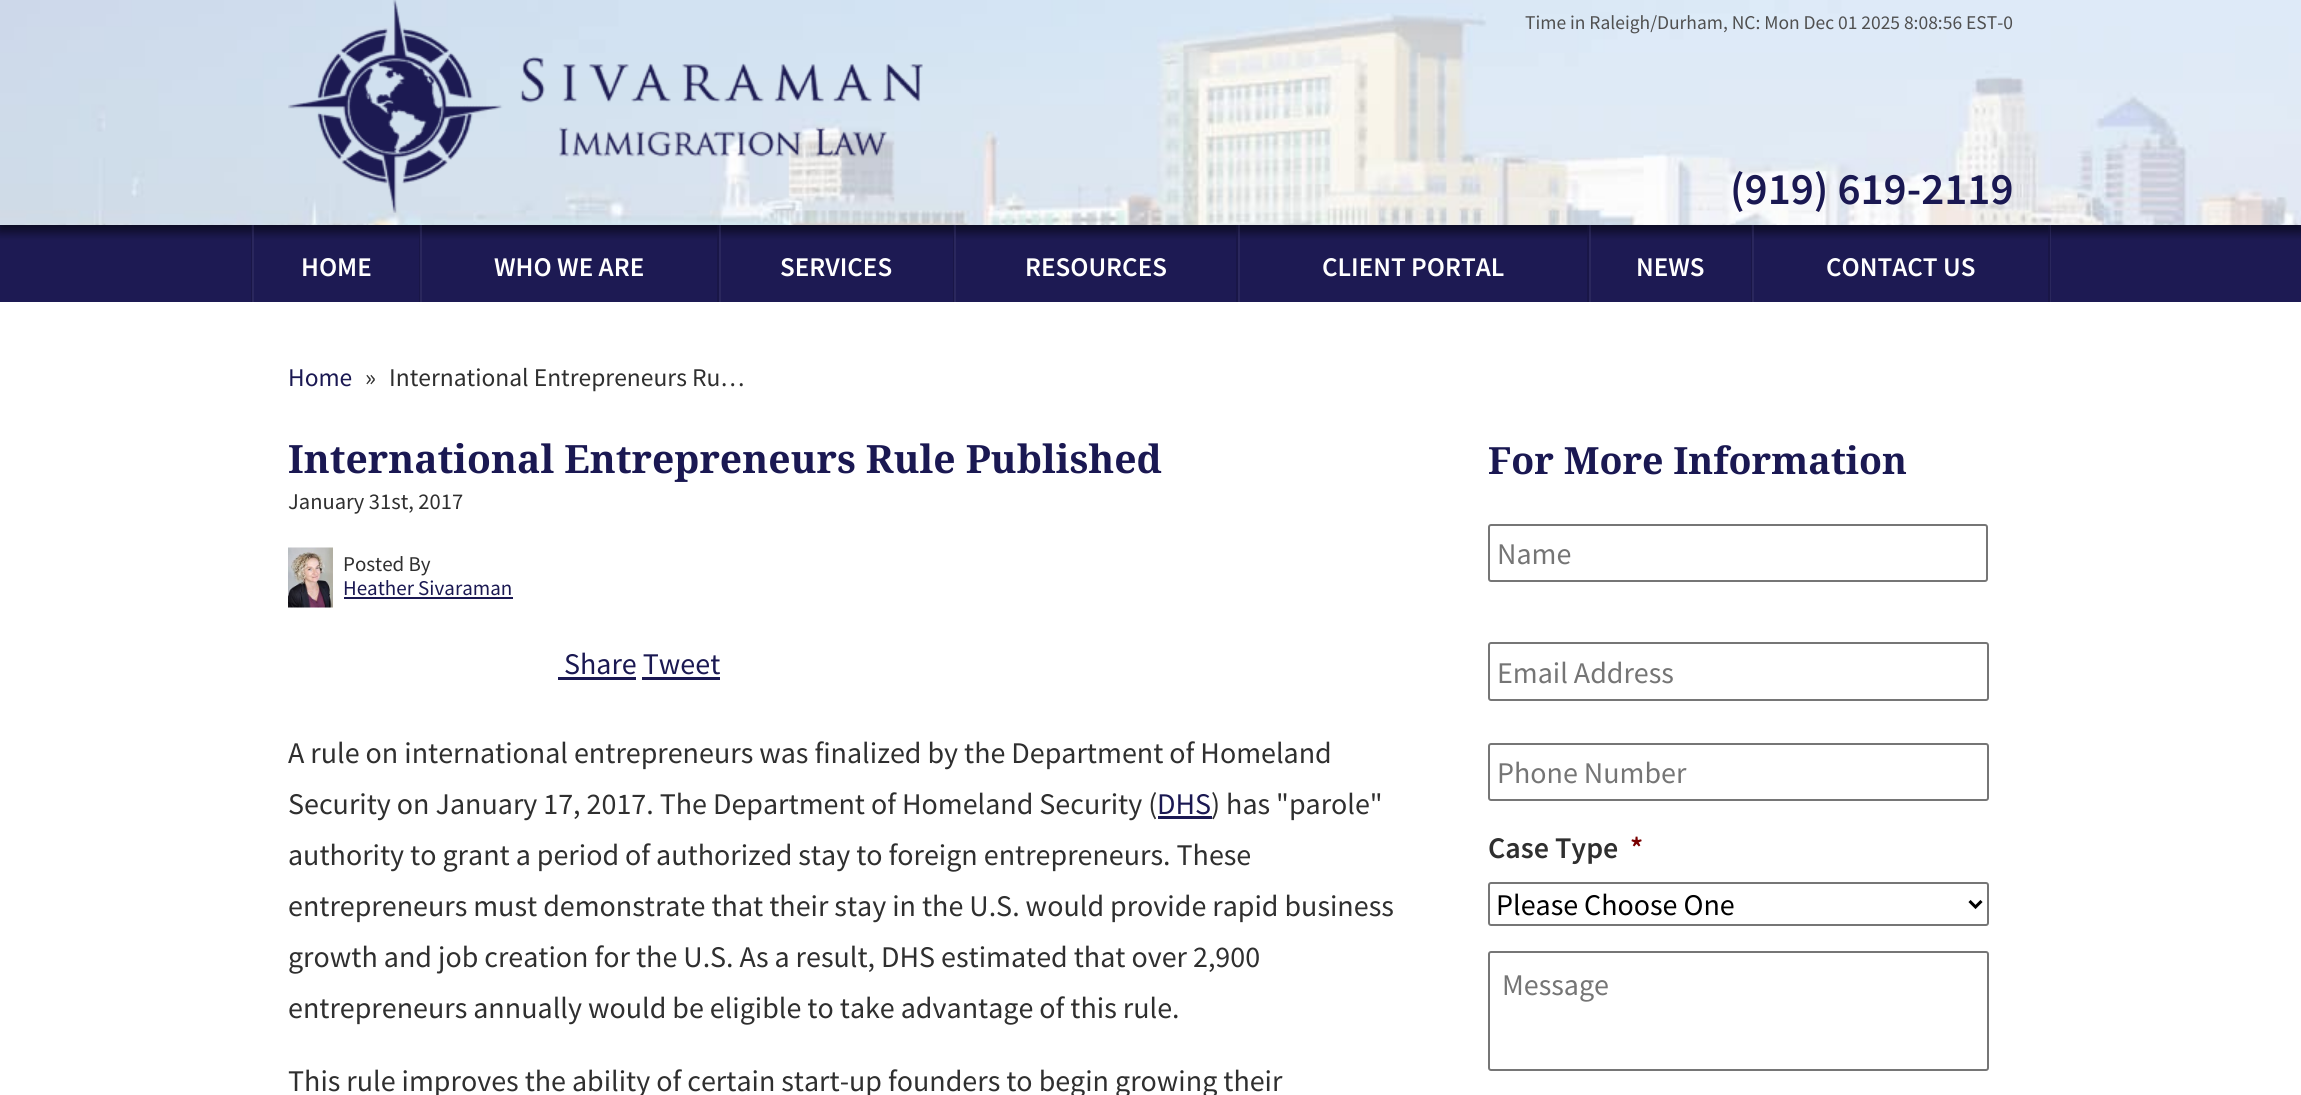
#include <cairo.h>
#include <math.h>
#include <stddef.h>

static cairo_t *ctx;

static void use_color(int r, int g, int b) {
    cairo_set_source_rgb(ctx, r / 255.0, g / 255.0, b / 255.0);
}

static void round_rect(double x, double y, double w, double h, double r) {
    cairo_new_sub_path(ctx);
    cairo_arc(ctx, x + w - r, y + h - r, r, 0, M_PI / 2);
    cairo_arc(ctx, x + r, y + h - r, r, M_PI / 2, M_PI);
    cairo_arc(ctx, x + r, y + r, r, M_PI, 1.5 * M_PI);
    cairo_arc(ctx, x + w - r, y + r, r, 1.5 * M_PI, 2 * M_PI);
    cairo_close_path(ctx);
}

static void shadow(double x, double y, double w, double h, double r, double blur, double alpha) {
    cairo_push_group_with_content(ctx, CAIRO_CONTENT_ALPHA);
    cairo_set_operator(ctx, CAIRO_OPERATOR_SOURCE);
    for (int i = 15; i >= -15 && fmin(w, h) + blur * i / 3 > 0; i -= 2) {
        double e = blur * i / 6;
        cairo_set_source_rgba(ctx, 0, 0, 0, alpha * erfc((i - 1) / 8.5) / 2);
        round_rect(x - e, y - e, w + 2 * e, h + 2 * e, fmax(0, fmin(r + e + blur * .6, fmin(w, h) / 2 + e)));
        cairo_fill(ctx);
    }
    cairo_pattern_t *soft = cairo_pop_group(ctx);
    cairo_mask(ctx, soft);
    cairo_pattern_destroy(soft);
}

static void picture(const char *path, double x, double y, double w, double h) {
    cairo_surface_t *image = cairo_image_surface_create_from_png(path);
    cairo_save(ctx);
    cairo_set_source_surface(ctx, image, x, y);
    cairo_rectangle(ctx, x, y, w, h);
    cairo_fill(ctx);
    cairo_restore(ctx);
    cairo_surface_destroy(image);
}

int main(void) {
    cairo_surface_t *surface = cairo_image_surface_create(CAIRO_FORMAT_RGB24, 2301, 1095);
    ctx = cairo_create(surface);
    cairo_font_options_t *options = cairo_font_options_create();
    cairo_font_options_set_hint_metrics(options, CAIRO_HINT_METRICS_OFF);
    cairo_font_options_set_hint_style(options, CAIRO_HINT_STYLE_NONE);
    cairo_set_font_options(ctx, options);
    cairo_set_miter_limit(ctx, 4);
    cairo_pattern_t *gradient;
    use_color(255, 255, 255);
    cairo_paint(ctx);
    gradient = cairo_pattern_create_linear(1151, 225, 1151, 302);
    cairo_pattern_add_color_stop_rgba(gradient, 0, 0.078, 0.071, 0.227, 1);
    cairo_pattern_add_color_stop_rgba(gradient, 0.2, 0.114, 0.102, 0.325, 1);
    cairo_set_source(ctx, gradient);
    cairo_pattern_destroy(gradient);
    cairo_rectangle(ctx, 0, 225, 2301, 77);
    cairo_fill(ctx);
    use_color(42, 39, 93);
    cairo_rectangle(ctx, 2050, 225, 1, 77);
    cairo_fill(ctx);
    use_color(25, 22, 71);
    cairo_rectangle(ctx, 251, 225, 1, 77);
    cairo_fill(ctx);
    cairo_rectangle(ctx, 419, 225, 1, 77);
    cairo_fill(ctx);
    use_color(42, 39, 93);
    cairo_rectangle(ctx, 252, 225, 2, 77);
    cairo_fill(ctx);
    use_color(25, 22, 71);
    cairo_rectangle(ctx, 717, 225, 2, 77);
    cairo_fill(ctx);
    use_color(42, 39, 93);
    cairo_rectangle(ctx, 420, 225, 2, 77);
    cairo_fill(ctx);
    use_color(25, 22, 71);
    cairo_rectangle(ctx, 953, 225, 1, 77);
    cairo_fill(ctx);
    use_color(42, 39, 93);
    cairo_rectangle(ctx, 719, 225, 2, 77);
    cairo_fill(ctx);
    use_color(25, 22, 71);
    cairo_rectangle(ctx, 1236, 225, 2, 77);
    cairo_fill(ctx);
    use_color(42, 39, 93);
    cairo_rectangle(ctx, 954, 225, 2, 77);
    cairo_fill(ctx);
    use_color(25, 22, 71);
    cairo_rectangle(ctx, 1587, 225, 2, 77);
    cairo_fill(ctx);
    use_color(42, 39, 93);
    cairo_rectangle(ctx, 1238, 225, 2, 77);
    cairo_fill(ctx);
    use_color(25, 22, 71);
    cairo_rectangle(ctx, 1751, 225, 1, 77);
    cairo_fill(ctx);
    use_color(42, 39, 93);
    cairo_rectangle(ctx, 1589, 225, 2, 77);
    cairo_fill(ctx);
    use_color(25, 22, 71);
    cairo_rectangle(ctx, 2048, 225, 2, 77);
    cairo_fill(ctx);
    use_color(42, 39, 93);
    cairo_rectangle(ctx, 1752, 225, 2, 77);
    cairo_fill(ctx);
    use_color(0, 0, 0);
    shadow(0, 6, 2301, 225, 0, 4.5, 0.38);
    picture("img1.png", 0, 0, 2301, 225);
    cairo_select_font_face(ctx, "Source Sans Pro", CAIRO_FONT_SLANT_NORMAL, CAIRO_FONT_WEIGHT_NORMAL);
    cairo_set_font_size(ctx, 19.5);
    use_color(80, 80, 80);
    cairo_move_to(ctx, 1525, 29);
    cairo_show_text(ctx, "Time in Raleigh/Durham, NC: Mon Dec 01 2025 8:08:56 EST-0");
    picture("img2.png", 288, 0, 635, 213);
    cairo_select_font_face(ctx, "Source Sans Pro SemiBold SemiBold", CAIRO_FONT_SLANT_NORMAL, CAIRO_FONT_WEIGHT_NORMAL);
    cairo_set_font_size(ctx, 45);
    use_color(26, 24, 82);
    cairo_move_to(ctx, 1730, 204);
    cairo_show_text(ctx, "(919) 619-2119");
    cairo_set_font_size(ctx, 27);
    use_color(255, 255, 255);
    cairo_move_to(ctx, 301, 276);
    cairo_show_text(ctx, "HOME");
    cairo_move_to(ctx, 494, 276);
    cairo_show_text(ctx, "WHO WE ARE");
    cairo_move_to(ctx, 780, 276);
    cairo_show_text(ctx, "SERVICES");
    cairo_move_to(ctx, 1025, 276);
    cairo_show_text(ctx, "RESOURCES");
    cairo_move_to(ctx, 1322, 276);
    cairo_show_text(ctx, "CLIENT PORTAL");
    cairo_move_to(ctx, 1636, 276);
    cairo_show_text(ctx, "NEWS");
    cairo_move_to(ctx, 1826, 276);
    cairo_show_text(ctx, "CONTACT US");
    cairo_select_font_face(ctx, "Source Sans Pro", CAIRO_FONT_SLANT_NORMAL, CAIRO_FONT_WEIGHT_NORMAL);
    cairo_set_font_size(ctx, 25.5);
    use_color(26, 24, 82);
    cairo_move_to(ctx, 288, 386);
    cairo_show_text(ctx, "Home");
    use_color(47, 47, 47);
    cairo_move_to(ctx, 365, 386);
    cairo_show_text(ctx, "»");
    cairo_move_to(ctx, 389, 386);
    cairo_show_text(ctx, "International Entrepreneurs Ru…");
    cairo_select_font_face(ctx, "Noto Serif", CAIRO_FONT_SLANT_NORMAL, CAIRO_FONT_WEIGHT_BOLD);
    cairo_set_font_size(ctx, 39);
    use_color(26, 24, 82);
    cairo_move_to(ctx, 288, 473);
    cairo_show_text(ctx, "International Entrepreneurs Rule Published");
    cairo_select_font_face(ctx, "Source Sans Pro", CAIRO_FONT_SLANT_NORMAL, CAIRO_FONT_WEIGHT_NORMAL);
    cairo_set_font_size(ctx, 22.5);
    use_color(47, 47, 47);
    cairo_move_to(ctx, 288, 509);
    cairo_show_text(ctx, "January 31st, 2017");
    picture("img3.png", 288, 547, 45, 61);
    cairo_set_font_size(ctx, 21);
    cairo_move_to(ctx, 343, 571);
    cairo_show_text(ctx, "Posted By");
    use_color(26, 24, 82);
    cairo_move_to(ctx, 343, 595);
    cairo_show_text(ctx, "Heather Sivaraman");
    cairo_rectangle(ctx, 344, 597, 169, 2);
    cairo_fill(ctx);
    cairo_set_font_size(ctx, 30);
    cairo_move_to(ctx, 564, 674);
    cairo_show_text(ctx, "Share Tweet");
    cairo_rectangle(ctx, 558, 677, 78, 3);
    cairo_fill(ctx);
    cairo_rectangle(ctx, 642, 677, 78, 3);
    cairo_fill(ctx);
    use_color(47, 47, 47);
    cairo_move_to(ctx, 288, 763);
    cairo_show_text(ctx, "A rule on international entrepreneurs was finalized by the Department of Homeland");
    cairo_move_to(ctx, 288, 814);
    cairo_show_text(ctx, "Security on January 17, 2017. The Department of Homeland Security (");
    use_color(26, 24, 82);
    cairo_move_to(ctx, 1157, 814);
    cairo_show_text(ctx, "DHS");
    cairo_rectangle(ctx, 1158, 816, 54, 3);
    cairo_fill(ctx);
    use_color(47, 47, 47);
    cairo_move_to(ctx, 1211, 814);
    cairo_show_text(ctx, ") has \"parole\"");
    cairo_move_to(ctx, 288, 865);
    cairo_show_text(ctx, "authority to grant a period of authorized stay to foreign entrepreneurs. These");
    cairo_move_to(ctx, 288, 916);
    cairo_show_text(ctx, "entrepreneurs must demonstrate that their stay in the U.S. would provide rapid business");
    cairo_move_to(ctx, 288, 967);
    cairo_show_text(ctx, "growth and job creation for the U.S. As a result, DHS estimated that over 2,900");
    cairo_move_to(ctx, 288, 1018);
    cairo_show_text(ctx, "entrepreneurs annually would be eligible to take advantage of this rule.");
    cairo_move_to(ctx, 288, 1091);
    cairo_show_text(ctx, "This rule improves the ability of certain start-up founders to begin growing their");
    cairo_select_font_face(ctx, "Noto Serif", CAIRO_FONT_SLANT_NORMAL, CAIRO_FONT_WEIGHT_BOLD);
    cairo_set_font_size(ctx, 37.5);
    use_color(26, 24, 82);
    cairo_move_to(ctx, 1488, 474);
    cairo_show_text(ctx, "For More Information");
    round_rect(1489, 525, 498, 56, 2);
    use_color(118, 118, 118);
    cairo_stroke(ctx);
    cairo_select_font_face(ctx, "Source Sans Pro", CAIRO_FONT_SLANT_NORMAL, CAIRO_FONT_WEIGHT_NORMAL);
    cairo_set_font_size(ctx, 30);
    use_color(117, 117, 117);
    cairo_move_to(ctx, 1497, 564);
    cairo_show_text(ctx, "Name");
    round_rect(1489, 643, 499, 57, 2);
    use_color(118, 118, 118);
    cairo_stroke(ctx);
    use_color(117, 117, 117);
    cairo_move_to(ctx, 1497, 683);
    cairo_show_text(ctx, "Email Address");
    round_rect(1489, 744, 499, 56, 2);
    use_color(118, 118, 118);
    cairo_stroke(ctx);
    use_color(117, 117, 117);
    cairo_move_to(ctx, 1497, 783);
    cairo_show_text(ctx, "Phone Number");
    cairo_select_font_face(ctx, "Source Sans Pro SemiBold SemiBold", CAIRO_FONT_SLANT_NORMAL, CAIRO_FONT_WEIGHT_NORMAL);
    use_color(47, 47, 47);
    cairo_move_to(ctx, 1488, 858);
    cairo_show_text(ctx, "Case Type");
    use_color(121, 0, 0);
    cairo_move_to(ctx, 1630, 858);
    cairo_show_text(ctx, "*");
    round_rect(1489, 883, 499, 42, 2);
    use_color(118, 118, 118);
    cairo_stroke(ctx);
    cairo_new_path(ctx);
    cairo_move_to(ctx, 1969.5, 901);
    cairo_line_to(ctx, 1975.5, 907);
    cairo_line_to(ctx, 1981.5, 901);
    use_color(0, 0, 0);
    cairo_set_line_width(ctx, 3);
    cairo_stroke(ctx);
    cairo_select_font_face(ctx, "Source Sans Pro", CAIRO_FONT_SLANT_NORMAL, CAIRO_FONT_WEIGHT_NORMAL);
    cairo_move_to(ctx, 1496, 915);
    cairo_show_text(ctx, "Please Choose One");
    round_rect(1489, 952, 499, 118, 2);
    use_color(118, 118, 118);
    cairo_set_line_width(ctx, 2);
    cairo_stroke(ctx);
    use_color(117, 117, 117);
    cairo_move_to(ctx, 1502, 995);
    cairo_show_text(ctx, "Message");
    cairo_surface_write_to_png(surface, "result.png");
    cairo_font_options_destroy(options);
    cairo_destroy(ctx);
    cairo_surface_destroy(surface);
    return 0;
}
